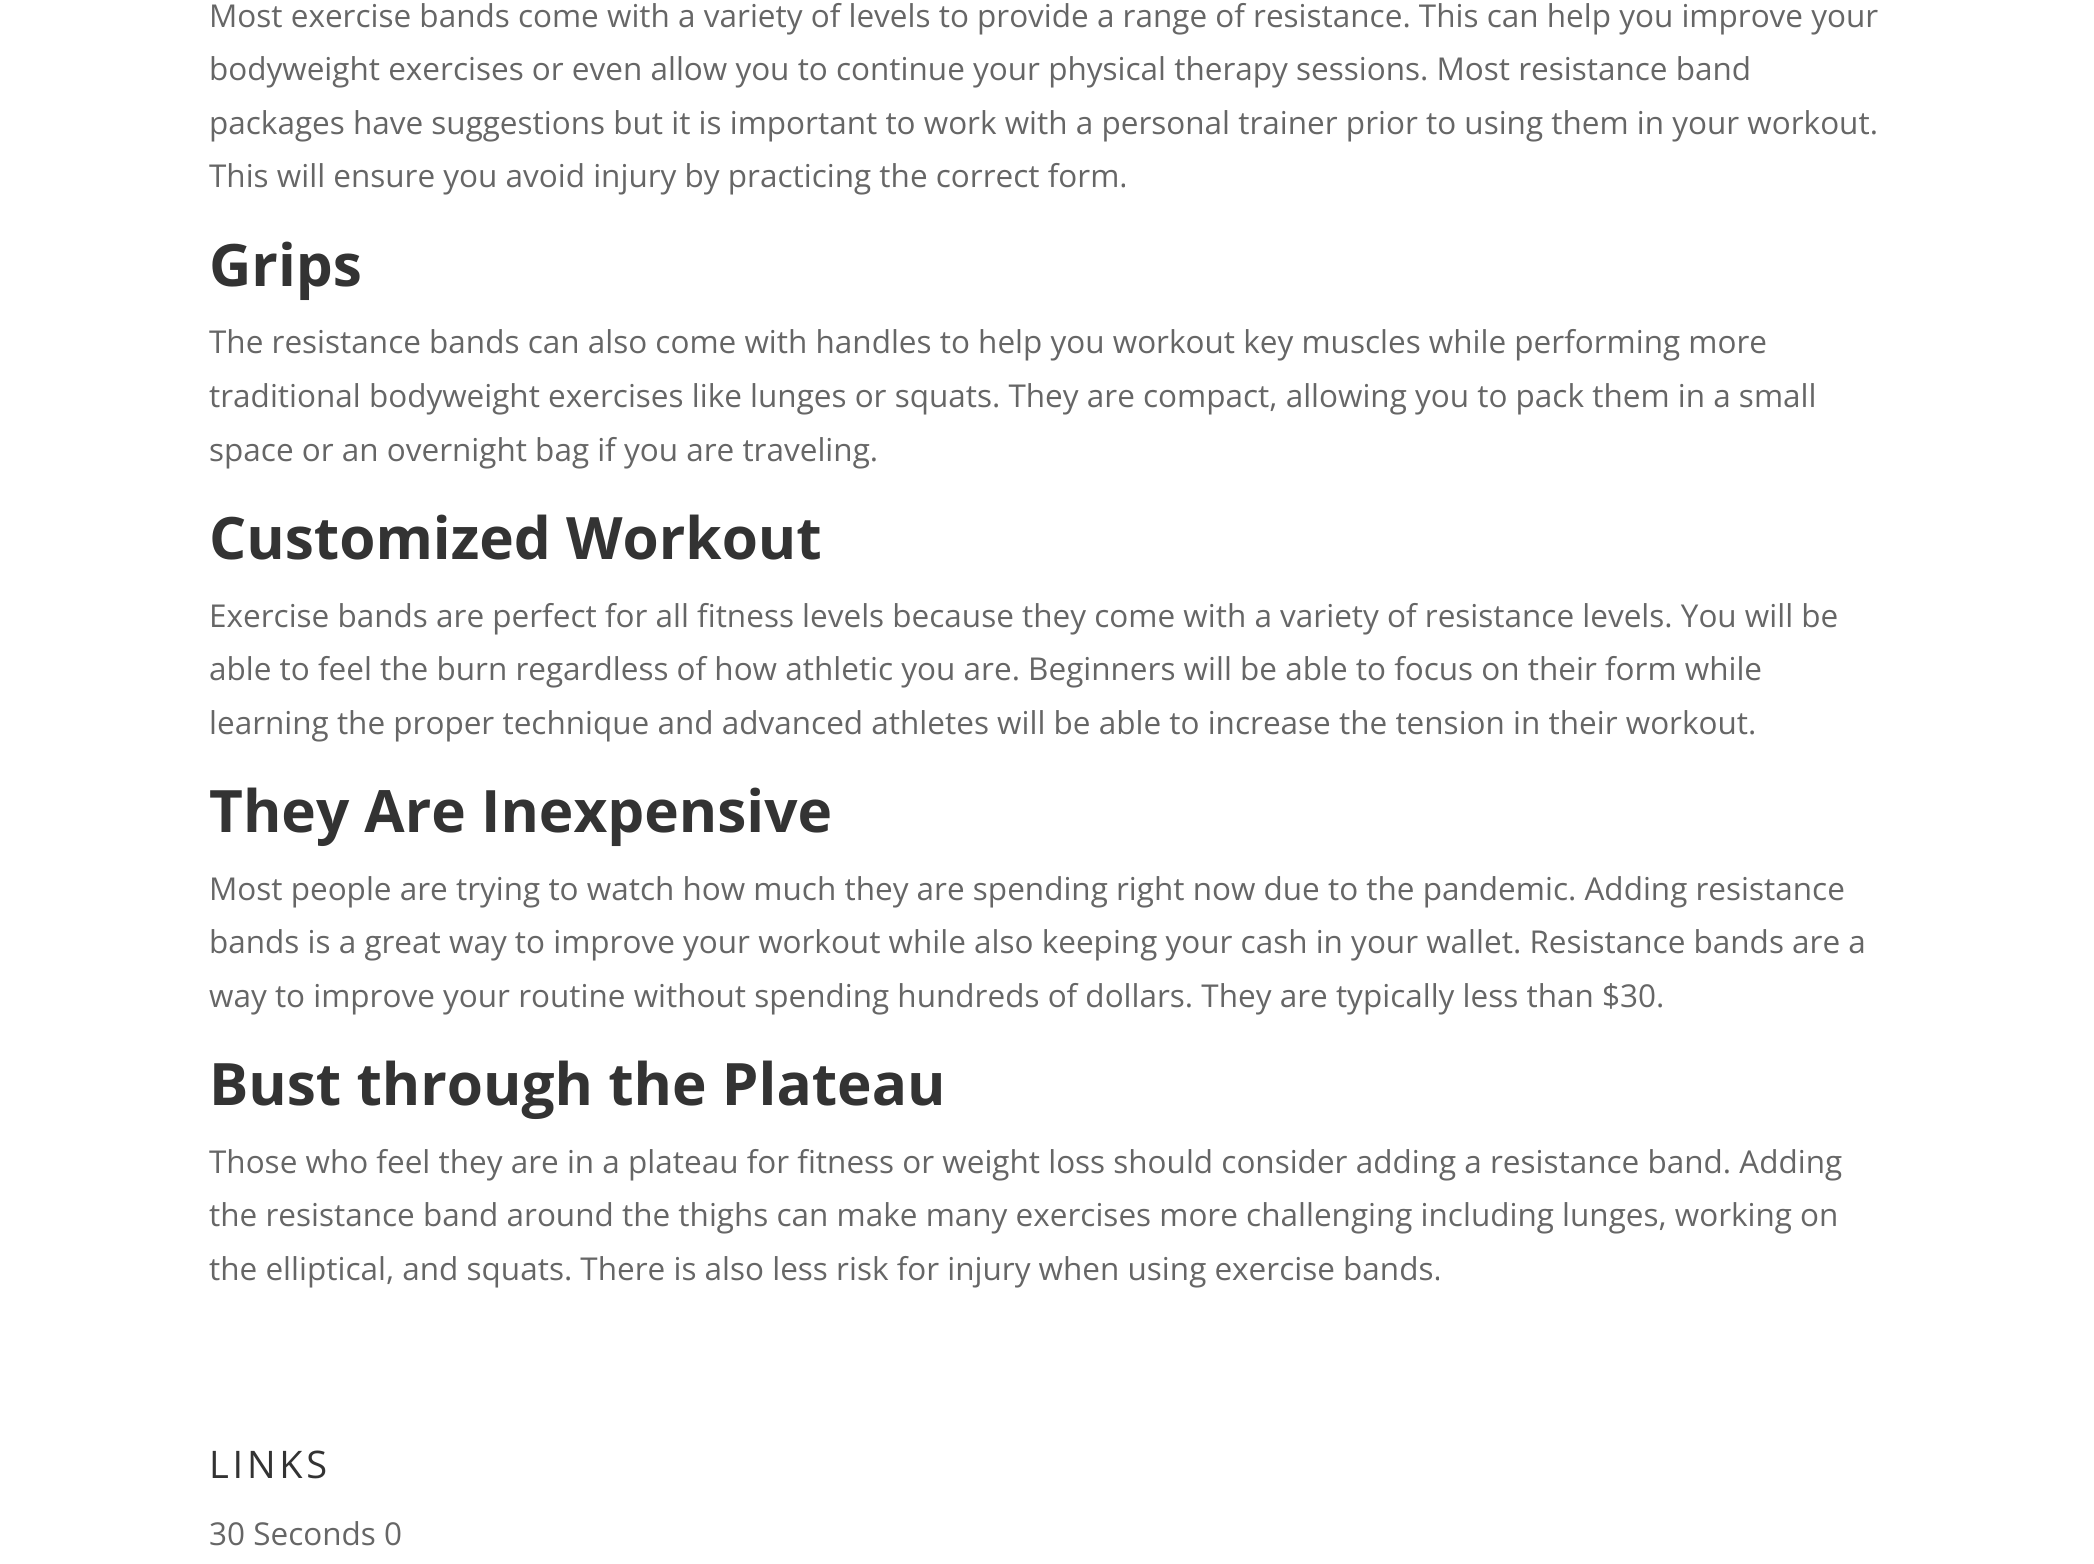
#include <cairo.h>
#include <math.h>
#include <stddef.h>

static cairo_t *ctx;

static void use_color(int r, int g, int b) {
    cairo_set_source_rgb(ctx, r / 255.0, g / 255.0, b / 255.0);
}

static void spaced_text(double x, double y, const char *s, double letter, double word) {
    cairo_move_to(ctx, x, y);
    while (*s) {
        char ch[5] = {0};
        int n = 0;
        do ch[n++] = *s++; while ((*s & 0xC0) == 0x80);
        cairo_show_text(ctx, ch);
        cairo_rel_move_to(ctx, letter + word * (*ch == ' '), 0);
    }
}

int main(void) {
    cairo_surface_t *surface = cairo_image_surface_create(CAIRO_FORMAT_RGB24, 2094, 1564);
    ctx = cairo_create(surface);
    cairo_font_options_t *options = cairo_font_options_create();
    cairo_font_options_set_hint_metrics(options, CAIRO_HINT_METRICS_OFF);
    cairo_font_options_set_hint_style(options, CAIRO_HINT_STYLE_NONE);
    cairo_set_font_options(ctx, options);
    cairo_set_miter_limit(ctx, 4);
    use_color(255, 255, 255);
    cairo_paint(ctx);
    cairo_select_font_face(ctx, "Open Sans", CAIRO_FONT_SLANT_NORMAL, CAIRO_FONT_WEIGHT_NORMAL);
    cairo_set_font_size(ctx, 31.5);
    use_color(102, 102, 102);
    cairo_move_to(ctx, 209, 27);
    cairo_show_text(ctx, "Most exercise bands come with a variety of levels to provide a range of resistance. This can help you improve your");
    cairo_move_to(ctx, 209, 80);
    cairo_show_text(ctx, "bodyweight exercises or even allow you to continue your physical therapy sessions. Most resistance band");
    cairo_move_to(ctx, 209, 134);
    cairo_show_text(ctx, "packages have suggestions but it is important to work with a personal trainer prior to using them in your workout.");
    cairo_move_to(ctx, 209, 187);
    cairo_show_text(ctx, "This will ensure you avoid injury by practicing the correct form.");
    cairo_select_font_face(ctx, "Open Sans", CAIRO_FONT_SLANT_NORMAL, CAIRO_FONT_WEIGHT_BOLD);
    cairo_set_font_size(ctx, 58.5);
    use_color(51, 51, 51);
    cairo_move_to(ctx, 209, 286);
    cairo_show_text(ctx, "Grips");
    cairo_select_font_face(ctx, "Open Sans", CAIRO_FONT_SLANT_NORMAL, CAIRO_FONT_WEIGHT_NORMAL);
    cairo_set_font_size(ctx, 31.5);
    use_color(102, 102, 102);
    cairo_move_to(ctx, 209, 353);
    cairo_show_text(ctx, "The resistance bands can also come with handles to help you workout key muscles while performing more");
    cairo_move_to(ctx, 209, 407);
    cairo_show_text(ctx, "traditional bodyweight exercises like lunges or squats. They are compact, allowing you to pack them in a small");
    cairo_move_to(ctx, 209, 461);
    cairo_show_text(ctx, "space or an overnight bag if you are traveling.");
    cairo_select_font_face(ctx, "Open Sans", CAIRO_FONT_SLANT_NORMAL, CAIRO_FONT_WEIGHT_BOLD);
    cairo_set_font_size(ctx, 58.5);
    use_color(51, 51, 51);
    cairo_move_to(ctx, 209, 559);
    cairo_show_text(ctx, "Customized Workout");
    cairo_select_font_face(ctx, "Open Sans", CAIRO_FONT_SLANT_NORMAL, CAIRO_FONT_WEIGHT_NORMAL);
    cairo_set_font_size(ctx, 31.5);
    use_color(102, 102, 102);
    cairo_move_to(ctx, 209, 627);
    cairo_show_text(ctx, "Exercise bands are perfect for all fitness levels because they come with a variety of resistance levels. You will be");
    cairo_move_to(ctx, 209, 680);
    cairo_show_text(ctx, "able to feel the burn regardless of how athletic you are. Beginners will be able to focus on their form while");
    cairo_move_to(ctx, 209, 734);
    cairo_show_text(ctx, "learning the proper technique and advanced athletes will be able to increase the tension in their workout.");
    cairo_select_font_face(ctx, "Open Sans", CAIRO_FONT_SLANT_NORMAL, CAIRO_FONT_WEIGHT_BOLD);
    cairo_set_font_size(ctx, 58.5);
    use_color(51, 51, 51);
    cairo_move_to(ctx, 209, 832);
    cairo_show_text(ctx, "They Are Inexpensive");
    cairo_select_font_face(ctx, "Open Sans", CAIRO_FONT_SLANT_NORMAL, CAIRO_FONT_WEIGHT_NORMAL);
    cairo_set_font_size(ctx, 31.5);
    use_color(102, 102, 102);
    cairo_move_to(ctx, 209, 900);
    cairo_show_text(ctx, "Most people are trying to watch how much they are spending right now due to the pandemic. Adding resistance");
    cairo_move_to(ctx, 209, 953);
    cairo_show_text(ctx, "bands is a great way to improve your workout while also keeping your cash in your wallet. Resistance bands are a");
    cairo_move_to(ctx, 209, 1007);
    cairo_show_text(ctx, "way to improve your routine without spending hundreds of dollars. They are typically less than $30.");
    cairo_select_font_face(ctx, "Open Sans", CAIRO_FONT_SLANT_NORMAL, CAIRO_FONT_WEIGHT_BOLD);
    cairo_set_font_size(ctx, 58.5);
    use_color(51, 51, 51);
    cairo_move_to(ctx, 209, 1105);
    cairo_show_text(ctx, "Bust through the Plateau");
    cairo_select_font_face(ctx, "Open Sans", CAIRO_FONT_SLANT_NORMAL, CAIRO_FONT_WEIGHT_NORMAL);
    cairo_set_font_size(ctx, 31.5);
    use_color(102, 102, 102);
    cairo_move_to(ctx, 209, 1173);
    cairo_show_text(ctx, "Those who feel they are in a plateau for fitness or weight loss should consider adding a resistance band. Adding");
    cairo_move_to(ctx, 209, 1226);
    cairo_show_text(ctx, "the resistance band around the thighs can make many exercises more challenging including lunges, working on");
    cairo_move_to(ctx, 209, 1280);
    cairo_show_text(ctx, "the elliptical, and squats. There is also less risk for injury when using exercise bands.");
    cairo_set_font_size(ctx, 38);
    use_color(51, 51, 51);
    spaced_text(209, 1478, "LINKS", 3.75, 0);
    cairo_set_font_size(ctx, 31.5);
    use_color(102, 102, 102);
    cairo_move_to(ctx, 209, 1545);
    cairo_show_text(ctx, "30 Seconds 0");
    cairo_surface_write_to_png(surface, "result.png");
    cairo_font_options_destroy(options);
    cairo_destroy(ctx);
    cairo_surface_destroy(surface);
    return 0;
}
